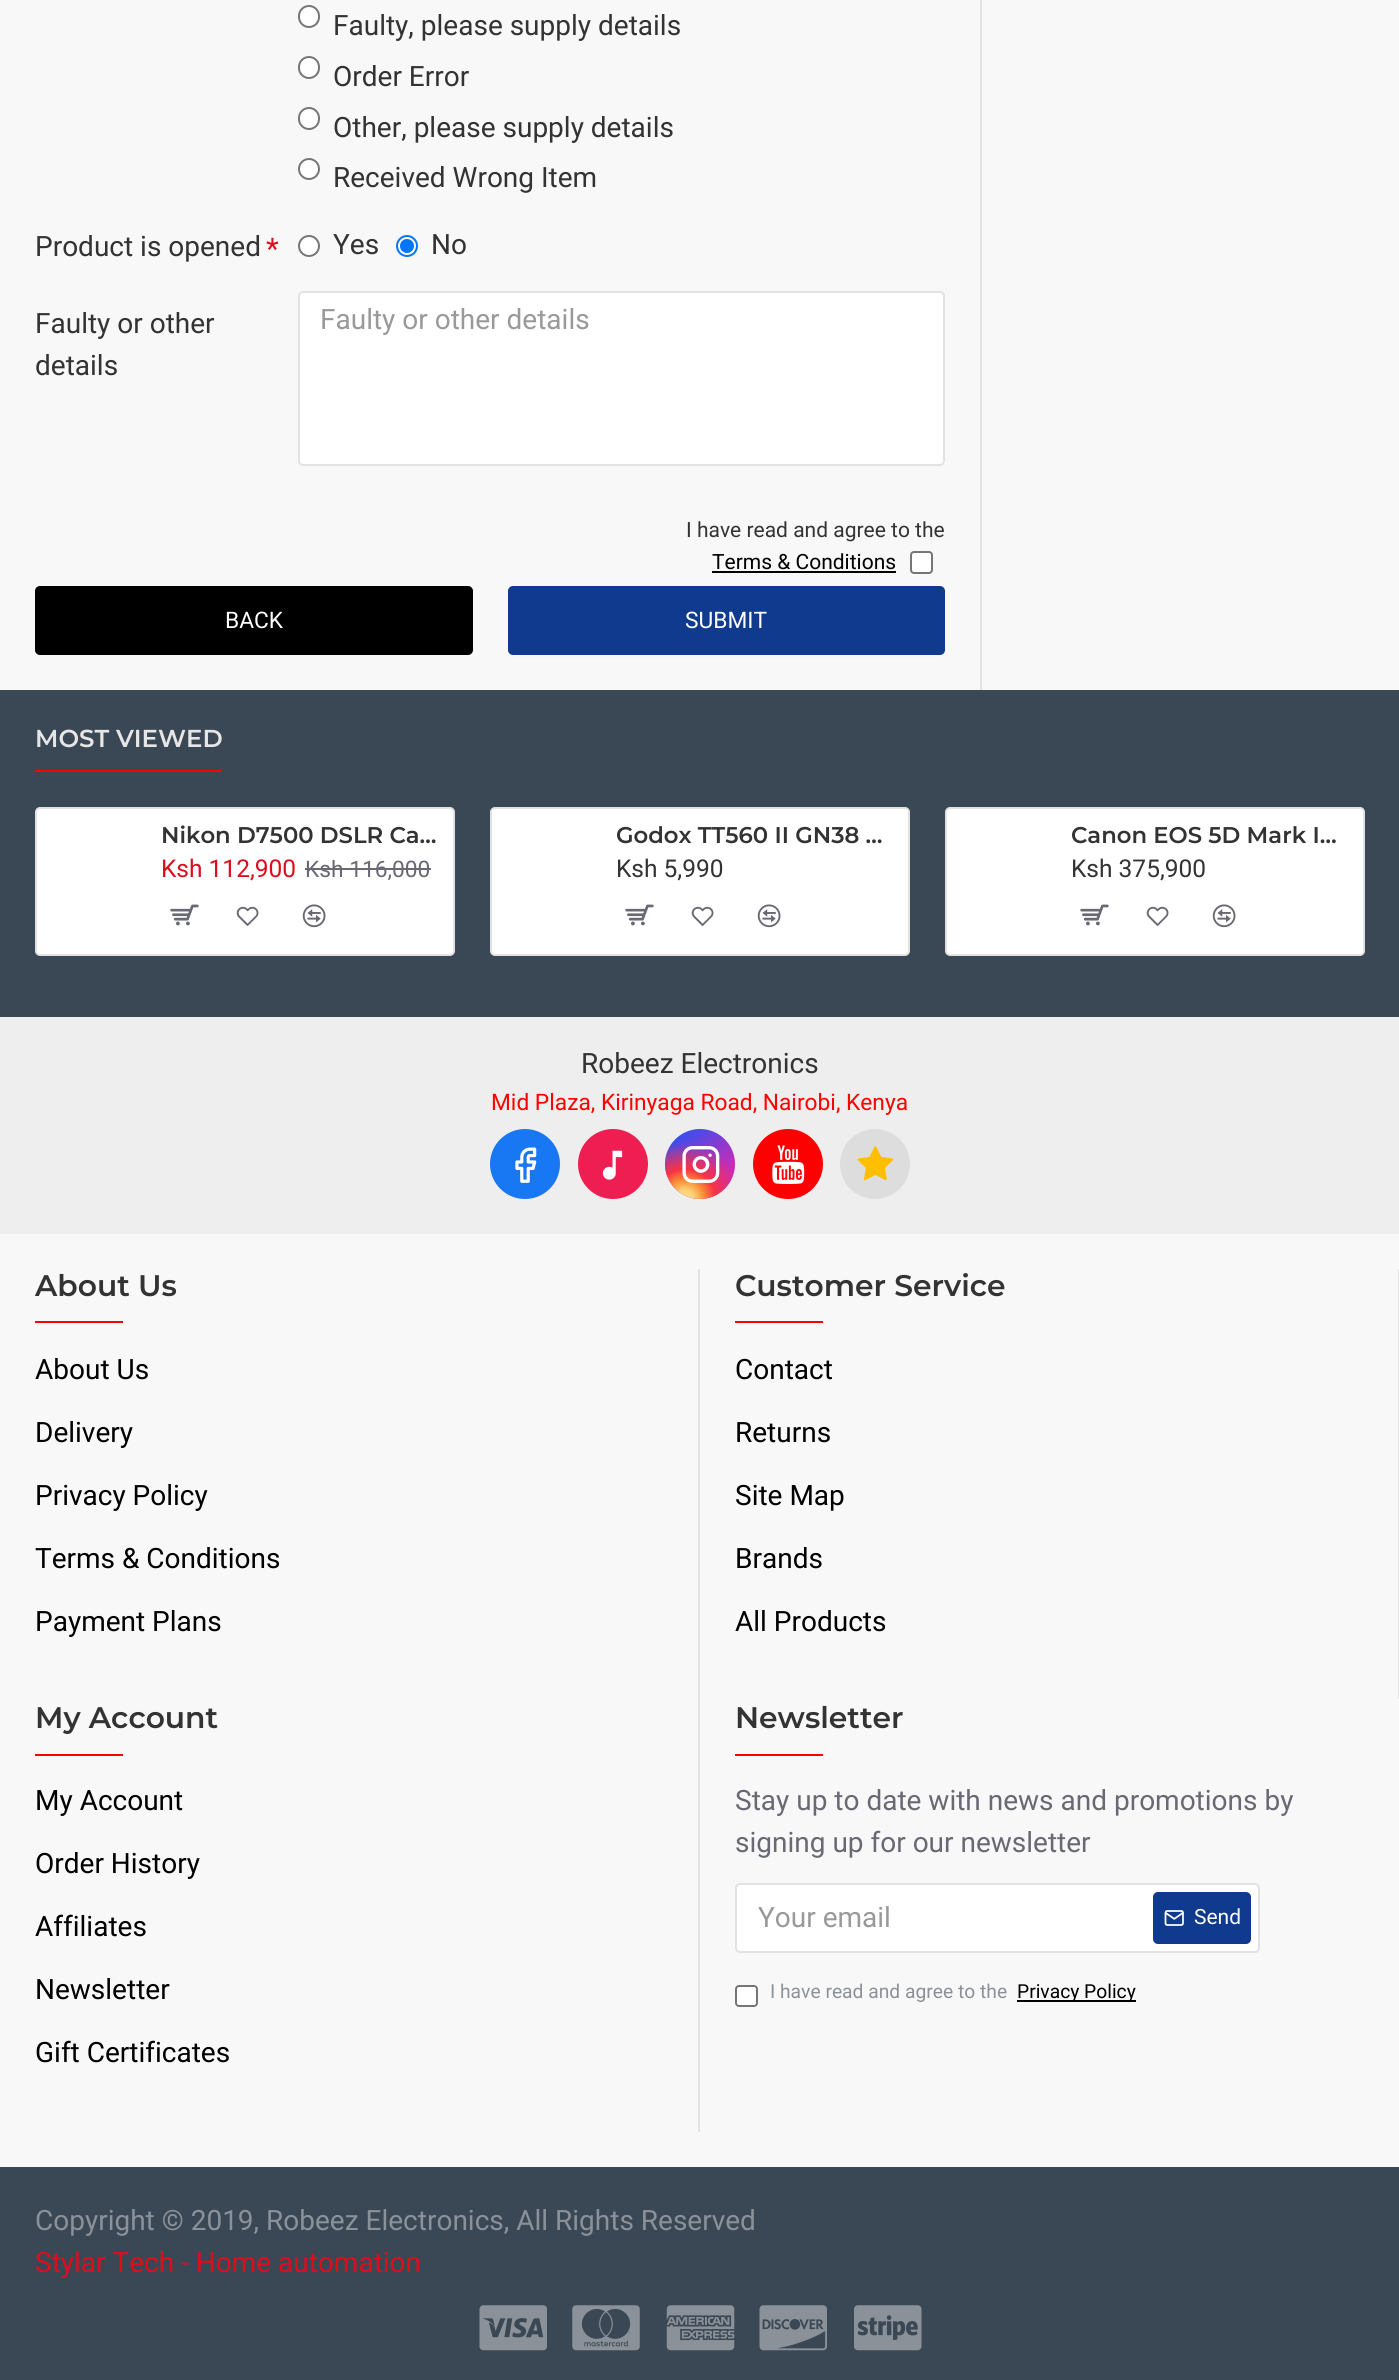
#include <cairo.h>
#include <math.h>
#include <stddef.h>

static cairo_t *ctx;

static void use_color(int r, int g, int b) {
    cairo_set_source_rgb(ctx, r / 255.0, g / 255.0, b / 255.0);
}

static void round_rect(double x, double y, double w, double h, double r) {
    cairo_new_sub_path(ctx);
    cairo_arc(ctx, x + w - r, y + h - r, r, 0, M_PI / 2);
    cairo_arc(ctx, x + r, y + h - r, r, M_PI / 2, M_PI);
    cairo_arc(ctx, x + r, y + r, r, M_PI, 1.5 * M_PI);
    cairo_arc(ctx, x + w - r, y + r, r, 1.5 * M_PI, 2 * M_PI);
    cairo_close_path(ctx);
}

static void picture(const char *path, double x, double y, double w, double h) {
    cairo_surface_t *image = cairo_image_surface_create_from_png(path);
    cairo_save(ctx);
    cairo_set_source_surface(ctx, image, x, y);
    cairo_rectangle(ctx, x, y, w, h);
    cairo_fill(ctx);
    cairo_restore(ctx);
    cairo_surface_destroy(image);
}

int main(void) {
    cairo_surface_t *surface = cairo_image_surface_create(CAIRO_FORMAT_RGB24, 1399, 2380);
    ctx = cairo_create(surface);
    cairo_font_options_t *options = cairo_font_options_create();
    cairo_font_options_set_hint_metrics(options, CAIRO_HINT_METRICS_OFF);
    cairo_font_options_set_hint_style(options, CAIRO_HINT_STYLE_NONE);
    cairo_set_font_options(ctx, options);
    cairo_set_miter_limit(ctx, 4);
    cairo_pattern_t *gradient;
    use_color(248, 248, 248);
    cairo_paint(ctx);
    use_color(255, 255, 255);
    round_rect(299, 6, 20, 21, 10);
    cairo_fill_preserve(ctx);
    use_color(118, 118, 118);
    cairo_stroke(ctx);
    cairo_select_font_face(ctx, "Roboto", CAIRO_FONT_SLANT_NORMAL, CAIRO_FONT_WEIGHT_NORMAL);
    cairo_set_font_size(ctx, 28);
    use_color(51, 51, 51);
    cairo_move_to(ctx, 333, 35);
    cairo_show_text(ctx, "Faulty, please supply details");
    use_color(255, 255, 255);
    round_rect(299, 57, 20, 21, 10);
    cairo_fill_preserve(ctx);
    use_color(118, 118, 118);
    cairo_stroke(ctx);
    use_color(51, 51, 51);
    cairo_move_to(ctx, 333, 86);
    cairo_show_text(ctx, "Order Error");
    use_color(255, 255, 255);
    round_rect(299, 108, 20, 21, 10);
    cairo_fill_preserve(ctx);
    use_color(118, 118, 118);
    cairo_stroke(ctx);
    use_color(51, 51, 51);
    cairo_move_to(ctx, 333, 137);
    cairo_show_text(ctx, "Other, please supply details");
    use_color(255, 255, 255);
    cairo_new_path(ctx);
    cairo_arc(ctx, 309, 169, 10, 0, 2 * M_PI);
    cairo_fill_preserve(ctx);
    use_color(118, 118, 118);
    cairo_stroke(ctx);
    use_color(51, 51, 51);
    cairo_move_to(ctx, 333, 187);
    cairo_show_text(ctx, "Received Wrong Item");
    cairo_move_to(ctx, 35, 256);
    cairo_show_text(ctx, "Product is opened");
    cairo_set_font_size(ctx, 29.75);
    use_color(221, 14, 28);
    cairo_move_to(ctx, 266, 259);
    cairo_show_text(ctx, "*");
    use_color(255, 255, 255);
    cairo_new_path(ctx);
    cairo_arc(ctx, 309, 246, 10, 0, 2 * M_PI);
    cairo_fill_preserve(ctx);
    use_color(118, 118, 118);
    cairo_stroke(ctx);
    cairo_set_font_size(ctx, 28);
    use_color(51, 51, 51);
    cairo_move_to(ctx, 333, 254);
    cairo_show_text(ctx, "Yes");
    use_color(255, 255, 255);
    cairo_new_path(ctx);
    cairo_arc(ctx, 407, 246, 10, 0, 2 * M_PI);
    cairo_fill_preserve(ctx);
    use_color(0, 117, 255);
    cairo_stroke(ctx);
    cairo_arc(ctx, 407, 246, 7, 0, 2 * M_PI);
    cairo_fill(ctx);
    use_color(51, 51, 51);
    cairo_move_to(ctx, 431, 254);
    cairo_show_text(ctx, "No");
    cairo_move_to(ctx, 35, 333);
    cairo_show_text(ctx, "Faulty or other");
    cairo_move_to(ctx, 35, 375);
    cairo_show_text(ctx, "details");
    use_color(255, 255, 255);
    round_rect(299, 292, 645, 173, 4);
    cairo_fill_preserve(ctx);
    use_color(226, 226, 226);
    cairo_stroke(ctx);
    use_color(153, 153, 153);
    cairo_move_to(ctx, 320, 329);
    cairo_show_text(ctx, "Faulty or other details");
    use_color(0, 0, 0);
    round_rect(35, 586, 438, 69, 5);
    cairo_fill(ctx);
    cairo_set_font_size(ctx, 22.75);
    use_color(255, 255, 255);
    cairo_move_to(ctx, 225, 628);
    cairo_show_text(ctx, "BACK");
    cairo_set_font_size(ctx, 21);
    use_color(51, 51, 51);
    cairo_move_to(ctx, 686, 537);
    cairo_show_text(ctx, "I have read and agree to the");
    use_color(0, 0, 0);
    cairo_move_to(ctx, 712, 569);
    cairo_show_text(ctx, "Terms & Conditions");
    cairo_rectangle(ctx, 712, 571, 184, 2);
    cairo_fill(ctx);
    use_color(255, 255, 255);
    round_rect(911, 552, 21, 21, 3);
    cairo_fill_preserve(ctx);
    use_color(118, 118, 118);
    cairo_stroke(ctx);
    use_color(15, 58, 141);
    round_rect(508, 586, 437, 69, 5);
    cairo_fill(ctx);
    cairo_set_font_size(ctx, 22.75);
    use_color(255, 255, 255);
    cairo_move_to(ctx, 685, 628);
    cairo_show_text(ctx, "SUBMIT");
    use_color(226, 226, 226);
    cairo_rectangle(ctx, 980, 0, 2, 690);
    cairo_fill(ctx);
    use_color(58, 71, 84);
    cairo_rectangle(ctx, 0, 690, 1399, 327);
    cairo_fill(ctx);
    use_color(255, 0, 0);
    cairo_rectangle(ctx, 35, 770, 187, 2);
    cairo_fill(ctx);
    cairo_select_font_face(ctx, "Montserrat SemiBold", CAIRO_FONT_SLANT_NORMAL, CAIRO_FONT_WEIGHT_NORMAL);
    cairo_set_font_size(ctx, 24.5);
    use_color(230, 230, 230);
    cairo_move_to(ctx, 35, 747);
    cairo_show_text(ctx, "MOST VIEWED");
    use_color(255, 255, 255);
    round_rect(36, 808, 418, 147, 4);
    cairo_fill_preserve(ctx);
    use_color(226, 226, 226);
    cairo_stroke(ctx);
    cairo_set_font_size(ctx, 22.75);
    use_color(51, 51, 51);
    cairo_move_to(ctx, 161, 843);
    cairo_show_text(ctx, "Nikon D7500 DSLR Ca…");
    cairo_select_font_face(ctx, "Roboto", CAIRO_FONT_SLANT_NORMAL, CAIRO_FONT_WEIGHT_NORMAL);
    cairo_set_font_size(ctx, 24.5);
    use_color(221, 14, 28);
    cairo_move_to(ctx, 161, 877);
    cairo_show_text(ctx, "Ksh 112,900");
    cairo_set_font_size(ctx, 22.75);
    use_color(105, 105, 115);
    cairo_move_to(ctx, 305, 877);
    cairo_show_text(ctx, "Ksh 116,000");
    cairo_rectangle(ctx, 305, 868, 126, 2);
    cairo_fill(ctx);
    picture("img1.png", 170, 904, 29, 22);
    picture("img2.png", 236, 906, 23, 20);
    picture("img3.png", 302, 904, 24, 24);
    use_color(255, 255, 255);
    round_rect(491, 808, 418, 147, 4);
    cairo_fill_preserve(ctx);
    use_color(226, 226, 226);
    cairo_stroke(ctx);
    cairo_select_font_face(ctx, "Montserrat SemiBold", CAIRO_FONT_SLANT_NORMAL, CAIRO_FONT_WEIGHT_NORMAL);
    use_color(51, 51, 51);
    cairo_move_to(ctx, 616, 843);
    cairo_show_text(ctx, "Godox TT560 II GN38 …");
    cairo_select_font_face(ctx, "Roboto", CAIRO_FONT_SLANT_NORMAL, CAIRO_FONT_WEIGHT_NORMAL);
    cairo_set_font_size(ctx, 24.5);
    cairo_move_to(ctx, 616, 877);
    cairo_show_text(ctx, "Ksh 5,990");
    picture("img1.png", 625, 904, 29, 22);
    picture("img2.png", 691, 906, 23, 20);
    picture("img3.png", 757, 904, 24, 24);
    use_color(255, 255, 255);
    round_rect(946, 808, 418, 147, 4);
    cairo_fill_preserve(ctx);
    use_color(226, 226, 226);
    cairo_stroke(ctx);
    cairo_select_font_face(ctx, "Montserrat SemiBold", CAIRO_FONT_SLANT_NORMAL, CAIRO_FONT_WEIGHT_NORMAL);
    cairo_set_font_size(ctx, 22.75);
    use_color(51, 51, 51);
    cairo_move_to(ctx, 1071, 843);
    cairo_show_text(ctx, "Canon EOS 5D Mark I…");
    cairo_select_font_face(ctx, "Roboto", CAIRO_FONT_SLANT_NORMAL, CAIRO_FONT_WEIGHT_NORMAL);
    cairo_set_font_size(ctx, 24.5);
    cairo_move_to(ctx, 1071, 877);
    cairo_show_text(ctx, "Ksh 375,900");
    picture("img1.png", 1080, 904, 29, 22);
    picture("img2.png", 1146, 906, 23, 20);
    picture("img3.png", 1212, 904, 24, 24);
    use_color(238, 238, 238);
    cairo_rectangle(ctx, 0, 1017, 1399, 217);
    cairo_fill(ctx);
    cairo_set_font_size(ctx, 28);
    use_color(51, 51, 51);
    cairo_move_to(ctx, 581, 1073);
    cairo_show_text(ctx, "Robeez Electronics");
    cairo_set_font_size(ctx, 22.75);
    use_color(255, 0, 0);
    cairo_move_to(ctx, 491, 1110);
    cairo_show_text(ctx, "Mid Plaza, Kirinyaga Road, Nairobi, Kenya");
    use_color(24, 119, 242);
    cairo_new_path(ctx);
    cairo_arc(ctx, 525, 1164, 35, 0, 2 * M_PI);
    cairo_fill(ctx);
    picture("img4.png", 515, 1147, 22, 36);
    use_color(238, 29, 82);
    cairo_arc(ctx, 613, 1164, 35, 0, 2 * M_PI);
    cairo_fill(ctx);
    picture("img5.png", 602, 1150, 21, 30);
    gradient = cairo_pattern_create_linear(672, 1124, 728, 1204);
    cairo_pattern_add_color_stop_rgba(gradient, 0.1, 0.188, 0.318, 0.945, 1);
    cairo_pattern_add_color_stop_rgba(gradient, 0.7, 0.788, 0.169, 0.718, 1);
    cairo_set_source(ctx, gradient);
    cairo_pattern_destroy(gradient);
    cairo_arc(ctx, 700, 1164, 35, 0, 2 * M_PI);
    cairo_fill(ctx);
    gradient = cairo_pattern_create_radial(685, 1199, 0, 685, 1199, 86);
    cairo_pattern_add_color_stop_rgba(gradient, 0, 0.988, 0.875, 0.561, 1);
    cairo_pattern_add_color_stop_rgba(gradient, 0.1, 0.984, 0.827, 0.467, 1);
    cairo_pattern_add_color_stop_rgba(gradient, 0.22, 0.98, 0.557, 0.216, 1);
    cairo_pattern_add_color_stop_rgba(gradient, 0.35, 0.969, 0.2, 0.267, 1);
    cairo_pattern_add_color_stop_rgba(gradient, 0.65, 0.969, 0.2, 0.267, 0);
    cairo_set_source(ctx, gradient);
    cairo_pattern_destroy(gradient);
    cairo_arc(ctx, 700, 1164, 35, 0, 2 * M_PI);
    cairo_fill(ctx);
    picture("img6.png", 682, 1146, 38, 37);
    use_color(255, 0, 0);
    cairo_arc(ctx, 788, 1164, 35, 0, 2 * M_PI);
    cairo_fill(ctx);
    picture("img7.png", 772, 1145, 33, 39);
    use_color(221, 221, 221);
    cairo_arc(ctx, 875, 1164, 35, 0, 2 * M_PI);
    cairo_fill(ctx);
    picture("img8.png", 857, 1146, 37, 35);
    use_color(226, 226, 226);
    cairo_rectangle(ctx, 698, 1269, 2, 863);
    cairo_fill(ctx);
    cairo_select_font_face(ctx, "Montserrat SemiBold", CAIRO_FONT_SLANT_NORMAL, CAIRO_FONT_WEIGHT_NORMAL);
    cairo_set_font_size(ctx, 29.75);
    use_color(51, 51, 51);
    cairo_move_to(ctx, 35, 1296);
    cairo_show_text(ctx, "About Us");
    use_color(255, 0, 0);
    cairo_rectangle(ctx, 35, 1321, 88, 2);
    cairo_fill(ctx);
    cairo_select_font_face(ctx, "Roboto", CAIRO_FONT_SLANT_NORMAL, CAIRO_FONT_WEIGHT_NORMAL);
    cairo_set_font_size(ctx, 28);
    use_color(0, 0, 0);
    cairo_move_to(ctx, 35, 1379);
    cairo_show_text(ctx, "About Us");
    cairo_move_to(ctx, 35, 1442);
    cairo_show_text(ctx, "Delivery");
    cairo_move_to(ctx, 35, 1505);
    cairo_show_text(ctx, "Privacy Policy");
    cairo_move_to(ctx, 35, 1568);
    cairo_show_text(ctx, "Terms & Conditions");
    cairo_move_to(ctx, 35, 1631);
    cairo_show_text(ctx, "Payment Plans");
    use_color(226, 226, 226);
    cairo_rectangle(ctx, 1398, 1269, 1, 430);
    cairo_fill(ctx);
    cairo_select_font_face(ctx, "Montserrat SemiBold", CAIRO_FONT_SLANT_NORMAL, CAIRO_FONT_WEIGHT_NORMAL);
    cairo_set_font_size(ctx, 29.75);
    use_color(51, 51, 51);
    cairo_move_to(ctx, 735, 1296);
    cairo_show_text(ctx, "Customer Service");
    use_color(255, 0, 0);
    cairo_rectangle(ctx, 735, 1321, 88, 2);
    cairo_fill(ctx);
    cairo_select_font_face(ctx, "Roboto", CAIRO_FONT_SLANT_NORMAL, CAIRO_FONT_WEIGHT_NORMAL);
    cairo_set_font_size(ctx, 28);
    use_color(0, 0, 0);
    cairo_move_to(ctx, 735, 1379);
    cairo_show_text(ctx, "Contact");
    cairo_move_to(ctx, 735, 1442);
    cairo_show_text(ctx, "Returns");
    cairo_move_to(ctx, 735, 1505);
    cairo_show_text(ctx, "Site Map");
    cairo_move_to(ctx, 735, 1568);
    cairo_show_text(ctx, "Brands");
    cairo_move_to(ctx, 735, 1631);
    cairo_show_text(ctx, "All Products");
    cairo_select_font_face(ctx, "Montserrat SemiBold", CAIRO_FONT_SLANT_NORMAL, CAIRO_FONT_WEIGHT_NORMAL);
    cairo_set_font_size(ctx, 29.75);
    use_color(51, 51, 51);
    cairo_move_to(ctx, 35, 1728);
    cairo_show_text(ctx, "My Account");
    use_color(255, 0, 0);
    cairo_rectangle(ctx, 35, 1754, 88, 2);
    cairo_fill(ctx);
    cairo_select_font_face(ctx, "Roboto", CAIRO_FONT_SLANT_NORMAL, CAIRO_FONT_WEIGHT_NORMAL);
    cairo_set_font_size(ctx, 28);
    use_color(0, 0, 0);
    cairo_move_to(ctx, 35, 1810);
    cairo_show_text(ctx, "My Account");
    cairo_move_to(ctx, 35, 1873);
    cairo_show_text(ctx, "Order History");
    cairo_move_to(ctx, 35, 1936);
    cairo_show_text(ctx, "Affiliates");
    cairo_move_to(ctx, 35, 1999);
    cairo_show_text(ctx, "Newsletter");
    cairo_move_to(ctx, 35, 2062);
    cairo_show_text(ctx, "Gift Certificates");
    cairo_select_font_face(ctx, "Montserrat SemiBold", CAIRO_FONT_SLANT_NORMAL, CAIRO_FONT_WEIGHT_NORMAL);
    cairo_set_font_size(ctx, 29.75);
    use_color(51, 51, 51);
    cairo_move_to(ctx, 735, 1728);
    cairo_show_text(ctx, "Newsletter");
    use_color(255, 0, 0);
    cairo_rectangle(ctx, 735, 1754, 88, 2);
    cairo_fill(ctx);
    cairo_select_font_face(ctx, "Roboto", CAIRO_FONT_SLANT_NORMAL, CAIRO_FONT_WEIGHT_NORMAL);
    cairo_set_font_size(ctx, 28);
    use_color(105, 105, 115);
    cairo_move_to(ctx, 735, 1810);
    cairo_show_text(ctx, "Stay up to date with news and promotions by");
    cairo_move_to(ctx, 735, 1852);
    cairo_show_text(ctx, "signing up for our newsletter");
    use_color(255, 255, 255);
    round_rect(736, 1884, 523, 68, 4);
    cairo_fill_preserve(ctx);
    use_color(226, 226, 226);
    cairo_stroke(ctx);
    use_color(153, 153, 153);
    cairo_move_to(ctx, 758, 1927);
    cairo_show_text(ctx, "Your email");
    use_color(15, 58, 141);
    round_rect(1153, 1892, 98, 52, 5);
    cairo_fill(ctx);
    picture("img9.png", 1164, 1910, 20, 16);
    cairo_set_font_size(ctx, 21);
    use_color(255, 255, 255);
    cairo_move_to(ctx, 1194, 1924);
    cairo_show_text(ctx, "Send");
    round_rect(736, 1986, 21, 20, 3);
    cairo_fill_preserve(ctx);
    use_color(118, 118, 118);
    cairo_stroke(ctx);
    cairo_set_font_size(ctx, 19.25);
    use_color(139, 145, 152);
    cairo_move_to(ctx, 770, 1998);
    cairo_show_text(ctx, "I have read and agree to the");
    use_color(0, 0, 0);
    cairo_rectangle(ctx, 1017, 2000, 119, 2);
    cairo_fill(ctx);
    cairo_move_to(ctx, 1017, 1998);
    cairo_show_text(ctx, "Privacy Policy");
    use_color(58, 71, 84);
    cairo_rectangle(ctx, 0, 2167, 1399, 213);
    cairo_fill(ctx);
    cairo_set_font_size(ctx, 28);
    use_color(139, 145, 152);
    cairo_move_to(ctx, 35, 2230);
    cairo_show_text(ctx, "Copyright © 2019, Robeez Electronics, All Rights Reserved");
    use_color(221, 14, 28);
    cairo_move_to(ctx, 35, 2272);
    cairo_show_text(ctx, "Stylar Tech - Home automation");
    picture("img10.png", 479, 2305, 68, 46);
    picture("img11.png", 572, 2305, 68, 46);
    picture("img12.png", 666, 2305, 69, 46);
    picture("img13.png", 759, 2305, 68, 46);
    picture("img14.png", 854, 2305, 68, 46);
    cairo_surface_write_to_png(surface, "result.png");
    cairo_font_options_destroy(options);
    cairo_destroy(ctx);
    cairo_surface_destroy(surface);
    return 0;
}
